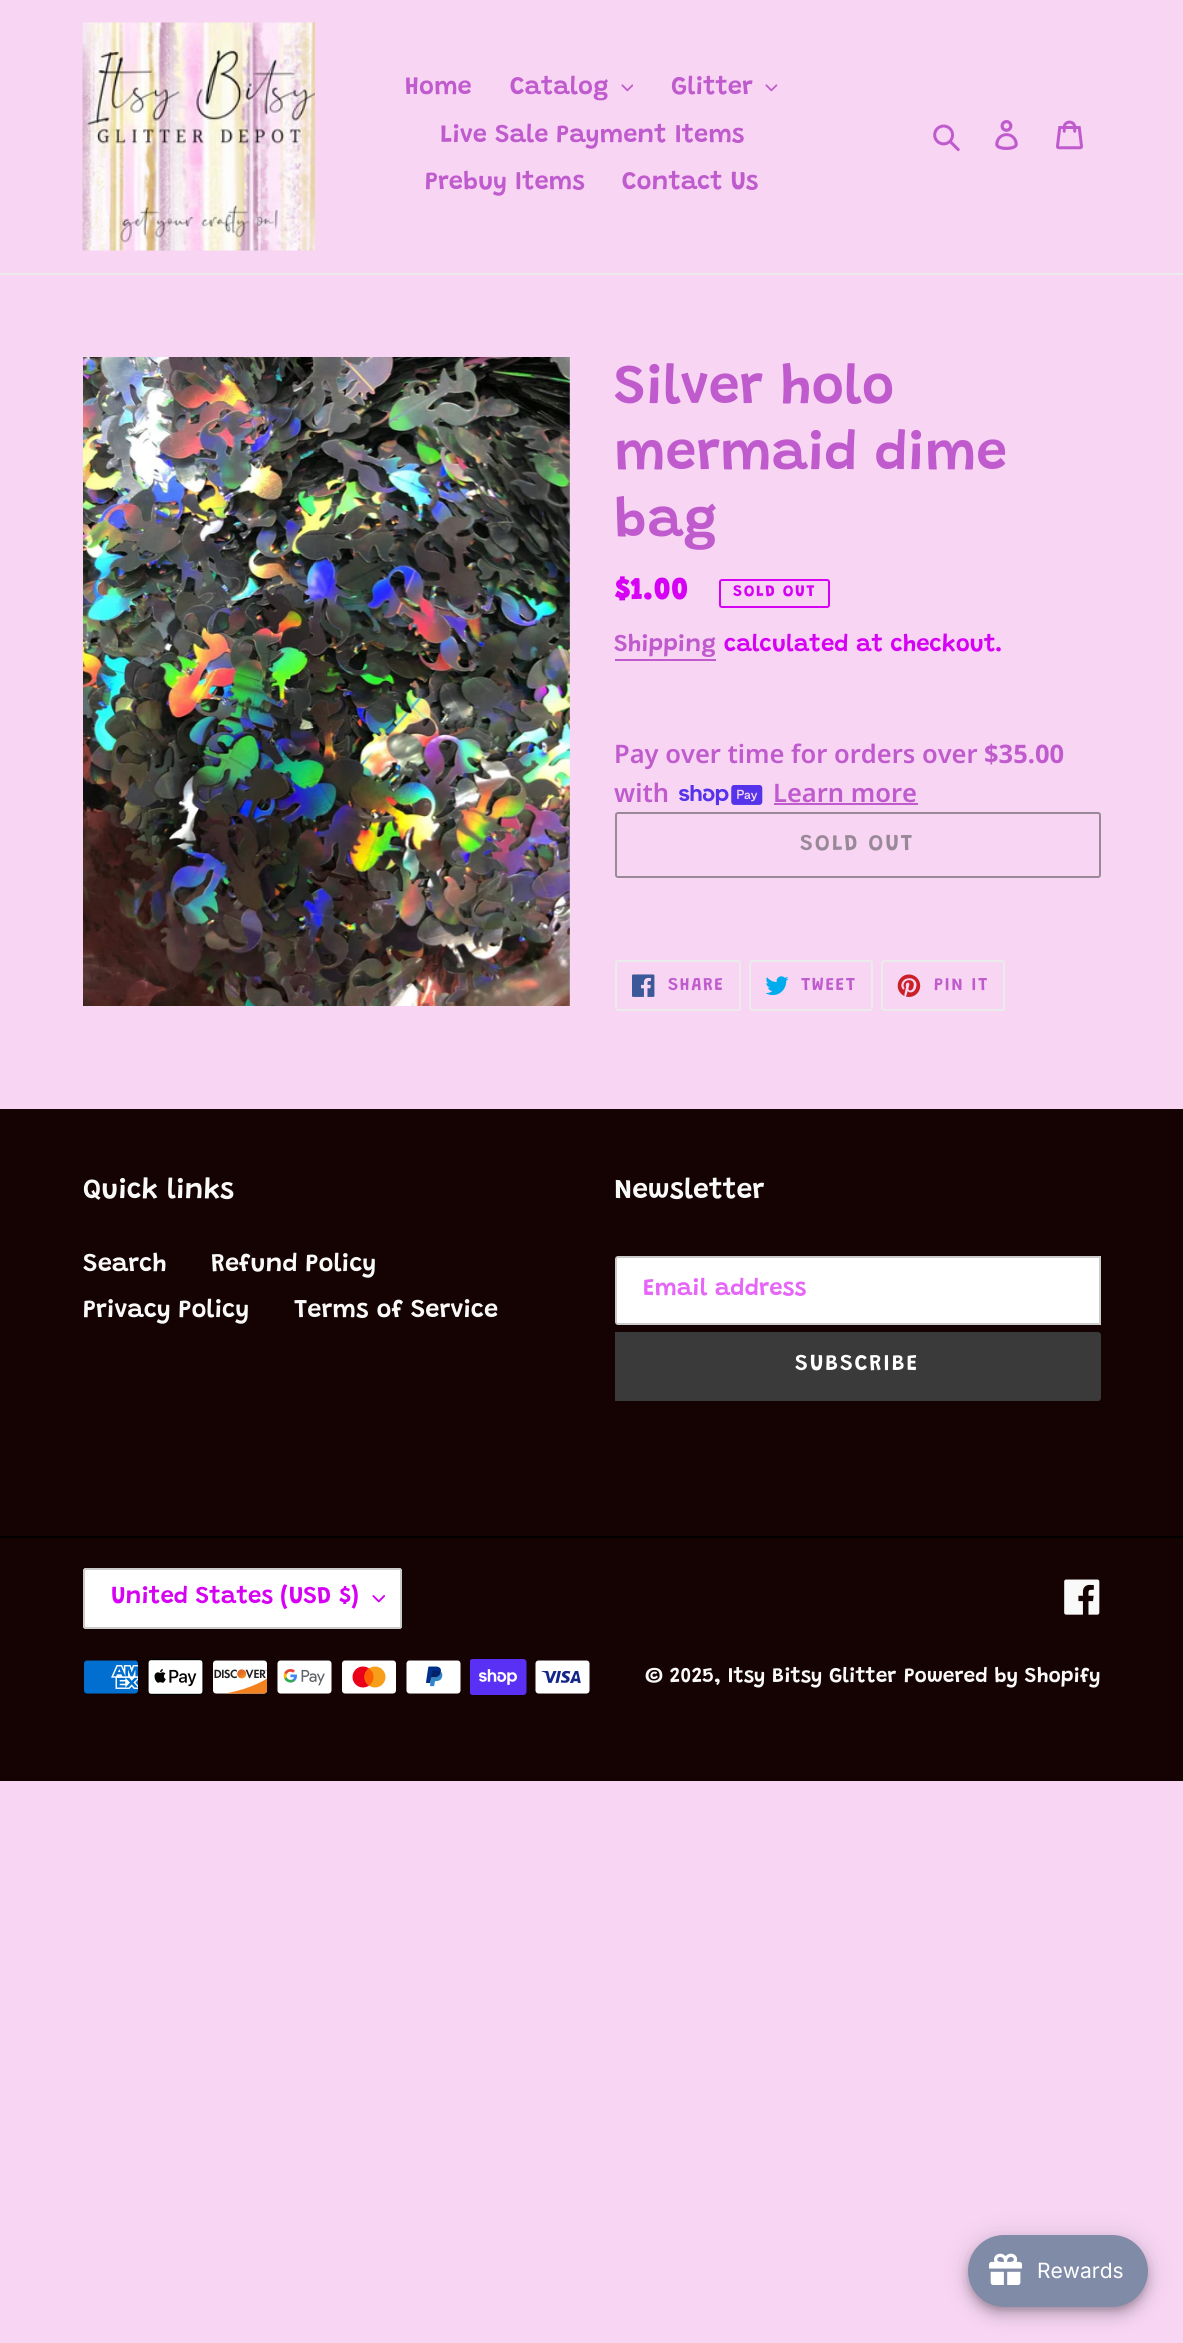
#include <cairo.h>
#include <math.h>
#include <stddef.h>

static cairo_t *ctx;

static void use_color(int r, int g, int b) {
    cairo_set_source_rgb(ctx, r / 255.0, g / 255.0, b / 255.0);
}

static void spaced_text(double x, double y, const char *s, double letter, double word) {
    cairo_move_to(ctx, x, y);
    while (*s) {
        char ch[5] = {0};
        int n = 0;
        do ch[n++] = *s++; while ((*s & 0xC0) == 0x80);
        cairo_show_text(ctx, ch);
        cairo_rel_move_to(ctx, letter + word * (*ch == ' '), 0);
    }
}

static void round_rect(double x, double y, double w, double h, double r) {
    cairo_new_sub_path(ctx);
    cairo_arc(ctx, x + w - r, y + h - r, r, 0, M_PI / 2);
    cairo_arc(ctx, x + r, y + h - r, r, M_PI / 2, M_PI);
    cairo_arc(ctx, x + r, y + r, r, M_PI, 1.5 * M_PI);
    cairo_arc(ctx, x + w - r, y + r, r, 1.5 * M_PI, 2 * M_PI);
    cairo_close_path(ctx);
}

static void shadow(double x, double y, double w, double h, double r, double blur, double alpha) {
    cairo_push_group_with_content(ctx, CAIRO_CONTENT_ALPHA);
    cairo_set_operator(ctx, CAIRO_OPERATOR_SOURCE);
    for (int i = 15; i >= -15 && fmin(w, h) + blur * i / 3 > 0; i -= 2) {
        double e = blur * i / 6;
        cairo_set_source_rgba(ctx, 0, 0, 0, alpha * erfc((i - 1) / 8.5) / 2);
        round_rect(x - e, y - e, w + 2 * e, h + 2 * e, fmax(0, fmin(r + e + blur * .6, fmin(w, h) / 2 + e)));
        cairo_fill(ctx);
    }
    cairo_pattern_t *soft = cairo_pop_group(ctx);
    cairo_mask(ctx, soft);
    cairo_pattern_destroy(soft);
}

static void picture(const char *path, double x, double y, double w, double h) {
    cairo_surface_t *image = cairo_image_surface_create_from_png(path);
    cairo_save(ctx);
    cairo_set_source_surface(ctx, image, x, y);
    cairo_rectangle(ctx, x, y, w, h);
    cairo_fill(ctx);
    cairo_restore(ctx);
    cairo_surface_destroy(image);
}

int main(void) {
    cairo_surface_t *surface = cairo_image_surface_create(CAIRO_FORMAT_RGB24, 1183, 2343);
    ctx = cairo_create(surface);
    cairo_font_options_t *options = cairo_font_options_create();
    cairo_font_options_set_hint_metrics(options, CAIRO_HINT_METRICS_OFF);
    cairo_font_options_set_hint_style(options, CAIRO_HINT_STYLE_NONE);
    cairo_set_font_options(ctx, options);
    cairo_set_miter_limit(ctx, 4);
    use_color(247, 213, 243);
    cairo_paint(ctx);
    use_color(235, 235, 235);
    cairo_rectangle(ctx, 0, 273, 1183, 2);
    cairo_fill(ctx);
    picture("img1.png", 82, 22, 233, 229);
    cairo_select_font_face(ctx, "Grandstander SemiBold", CAIRO_FONT_SLANT_NORMAL, CAIRO_FONT_WEIGHT_NORMAL);
    cairo_set_font_size(ctx, 25.5);
    use_color(192, 91, 206);
    cairo_move_to(ctx, 405, 94);
    cairo_show_text(ctx, "Home");
    cairo_move_to(ctx, 510, 94);
    cairo_show_text(ctx, "Catalog");
    picture("img2.png", 621, 84, 12, 8);
    cairo_move_to(ctx, 671, 94);
    cairo_show_text(ctx, "Glitter");
    picture("img3.png", 765, 84, 13, 8);
    cairo_move_to(ctx, 440, 142);
    cairo_show_text(ctx, "Live Sale Payment Items");
    cairo_move_to(ctx, 425, 189);
    cairo_show_text(ctx, "Prebuy Items");
    cairo_move_to(ctx, 622, 189);
    cairo_show_text(ctx, "Contact Us");
    picture("img4.png", 933, 124, 27, 28);
    picture("img5.png", 995, 120, 23, 30);
    picture("img6.png", 1056, 120, 27, 30);
    picture("img7.png", 83, 357, 487, 649);
    cairo_set_font_size(ctx, 55.5);
    cairo_move_to(ctx, 614, 403);
    cairo_show_text(ctx, "Silver holo");
    cairo_move_to(ctx, 614, 469);
    cairo_show_text(ctx, "mermaid dime");
    cairo_move_to(ctx, 614, 536);
    cairo_show_text(ctx, "bag");
    cairo_select_font_face(ctx, "Grandstander Black", CAIRO_FONT_SLANT_NORMAL, CAIRO_FONT_WEIGHT_NORMAL);
    cairo_set_font_size(ctx, 32);
    use_color(214, 0, 244);
    cairo_move_to(ctx, 614, 599);
    cairo_show_text(ctx, "$1.00");
    round_rect(720, 580, 109, 27, 2);
    cairo_stroke(ctx);
    cairo_select_font_face(ctx, "Grandstander", CAIRO_FONT_SLANT_NORMAL, CAIRO_FONT_WEIGHT_BOLD);
    cairo_set_font_size(ctx, 16);
    spaced_text(733, 596, "SOLD OUT", 1.5, 0);
    cairo_select_font_face(ctx, "Grandstander SemiBold", CAIRO_FONT_SLANT_NORMAL, CAIRO_FONT_WEIGHT_NORMAL);
    cairo_set_font_size(ctx, 24);
    use_color(192, 91, 206);
    cairo_move_to(ctx, 614, 651);
    cairo_show_text(ctx, "Shipping");
    cairo_rectangle(ctx, 615, 659, 101, 2);
    cairo_fill(ctx);
    use_color(214, 0, 244);
    cairo_move_to(ctx, 724, 651);
    cairo_show_text(ctx, "calculated at checkout.");
    cairo_select_font_face(ctx, "Noto Sans SemiBold", CAIRO_FONT_SLANT_NORMAL, CAIRO_FONT_WEIGHT_NORMAL);
    cairo_set_font_size(ctx, 25.5);
    use_color(192, 91, 206);
    cairo_move_to(ctx, 614, 763);
    cairo_show_text(ctx, "Pay over time for orders over");
    cairo_select_font_face(ctx, "Noto Sans", CAIRO_FONT_SLANT_NORMAL, CAIRO_FONT_WEIGHT_BOLD);
    cairo_move_to(ctx, 984, 763);
    cairo_show_text(ctx, "$35.00");
    cairo_select_font_face(ctx, "Noto Sans SemiBold", CAIRO_FONT_SLANT_NORMAL, CAIRO_FONT_WEIGHT_NORMAL);
    cairo_move_to(ctx, 614, 802);
    cairo_show_text(ctx, "with");
    picture("img8.png", 679, 785, 84, 21);
    cairo_move_to(ctx, 773, 802);
    cairo_show_text(ctx, "Learn more");
    cairo_rectangle(ctx, 774, 803, 144, 2);
    cairo_fill(ctx);
    round_rect(616, 813, 484, 64, 2);
    use_color(153, 136, 151);
    cairo_stroke(ctx);
    cairo_select_font_face(ctx, "Grandstander SemiBold", CAIRO_FONT_SLANT_NORMAL, CAIRO_FONT_WEIGHT_NORMAL);
    cairo_set_font_size(ctx, 22.5);
    spaced_text(800, 850, "SOLD OUT", 1.75, 0);
    round_rect(616, 961, 124, 49, 2);
    use_color(235, 235, 235);
    cairo_stroke(ctx);
    picture("img9.png", 632, 974, 23, 23);
    cairo_set_font_size(ctx, 18);
    use_color(192, 91, 206);
    spaced_text(668, 990, "SHARE", 1.5, 0);
    round_rect(750, 961, 122, 49, 2);
    use_color(235, 235, 235);
    cairo_stroke(ctx);
    picture("img10.png", 765, 976, 24, 20);
    use_color(192, 91, 206);
    spaced_text(801, 990, "TWEET", 1.5, 0);
    round_rect(882, 961, 122, 49, 2);
    use_color(235, 235, 235);
    cairo_stroke(ctx);
    picture("img11.png", 897, 974, 24, 23);
    use_color(192, 91, 206);
    spaced_text(934, 990, "PIN IT", 1.5, 0);
    use_color(21, 2, 2);
    cairo_rectangle(ctx, 0, 1109, 1183, 672);
    cairo_fill(ctx);
    cairo_set_font_size(ctx, 28.5);
    use_color(249, 249, 249);
    cairo_move_to(ctx, 83, 1198);
    cairo_show_text(ctx, "Quick links");
    cairo_set_font_size(ctx, 25.5);
    cairo_move_to(ctx, 83, 1271);
    cairo_show_text(ctx, "Search");
    cairo_move_to(ctx, 211, 1271);
    cairo_show_text(ctx, "Refund Policy");
    cairo_move_to(ctx, 83, 1317);
    cairo_show_text(ctx, "Privacy Policy");
    cairo_move_to(ctx, 294, 1317);
    cairo_show_text(ctx, "Terms of Service");
    cairo_set_font_size(ctx, 28.5);
    cairo_move_to(ctx, 614, 1198);
    cairo_show_text(ctx, "Newsletter");
    use_color(255, 255, 255);
    cairo_new_path(ctx);
    cairo_move_to(ctx, 618, 1257);
    cairo_line_to(ctx, 1100, 1257);
    cairo_line_to(ctx, 1100, 1324);
    cairo_line_to(ctx, 618, 1324);
    cairo_curve_to(ctx, 617, 1324, 616, 1323, 616, 1322);
    cairo_line_to(ctx, 616, 1259);
    cairo_curve_to(ctx, 616, 1258, 617, 1257, 618, 1257);
    cairo_close_path(ctx);
    cairo_fill_preserve(ctx);
    use_color(204, 204, 204);
    cairo_stroke(ctx);
    cairo_save(ctx);
    cairo_rectangle(ctx, 644, 1277, 429, 24);
    cairo_clip(ctx);
    cairo_set_font_size(ctx, 24);
    use_color(230, 102, 248);
    cairo_move_to(ctx, 643, 1295);
    cairo_show_text(ctx, "Email address");
    cairo_restore(ctx);
    use_color(58, 58, 58);
    cairo_new_path(ctx);
    cairo_move_to(ctx, 615, 1332);
    cairo_line_to(ctx, 1098, 1332);
    cairo_curve_to(ctx, 1099.5, 1332, 1101, 1333.5, 1101, 1335);
    cairo_line_to(ctx, 1101, 1398);
    cairo_curve_to(ctx, 1101, 1399.5, 1099.5, 1401, 1098, 1401);
    cairo_line_to(ctx, 615, 1401);
    cairo_close_path(ctx);
    cairo_fill(ctx);
    cairo_set_font_size(ctx, 22.5);
    use_color(255, 255, 255);
    spaced_text(795, 1370, "SUBSCRIBE", 1.75, 0);
    use_color(0, 0, 0);
    cairo_rectangle(ctx, 0, 1536, 1183, 2);
    cairo_fill(ctx);
    use_color(255, 255, 255);
    round_rect(83, 1568, 319, 61, 3);
    cairo_fill(ctx);
    picture("img12.png", 372, 1595, 13, 8);
    round_rect(84, 1569, 317, 59, 2);
    use_color(204, 204, 204);
    cairo_stroke(ctx);
    cairo_set_font_size(ctx, 24);
    use_color(214, 0, 244);
    cairo_move_to(ctx, 111, 1603);
    cairo_show_text(ctx, "United States (USD $)");
    picture("img13.png", 1064, 1579, 36, 36);
    picture("img14.png", 84, 1660, 54, 34);
    picture("img15.png", 147, 1659, 57, 36);
    picture("img16.png", 213, 1660, 55, 34);
    picture("img17.png", 277, 1660, 55, 34);
    picture("img18.png", 342, 1660, 54, 34);
    picture("img19.png", 406, 1660, 55, 34);
    picture("img20.png", 470, 1659, 57, 36);
    picture("img21.png", 535, 1660, 55, 34);
    cairo_set_font_size(ctx, 21);
    use_color(249, 249, 249);
    cairo_move_to(ctx, 645, 1682);
    cairo_show_text(ctx, "© 2025, Itsy Bitsy Glitter");
    cairo_move_to(ctx, 904, 1682);
    cairo_show_text(ctx, "Powered by Shopify");
    use_color(0, 0, 0);
    shadow(968, 2237, 180, 72, 36, 13.5, 0.12);
    shadow(968, 2244, 180, 72, 36, 7.5, 0.14);
    shadow(969, 2241, 177, 69, 34.5, 4, 0.2);
    use_color(128, 139, 167);
    round_rect(968, 2235, 180, 72, 36);
    cairo_fill(ctx);
    picture("img22.png", 989, 2253, 33, 32);
    cairo_select_font_face(ctx, "Inter", CAIRO_FONT_SLANT_NORMAL, CAIRO_FONT_WEIGHT_NORMAL);
    use_color(255, 255, 255);
    cairo_move_to(ctx, 1037, 2278);
    cairo_show_text(ctx, "Rewards");
    cairo_surface_write_to_png(surface, "result.png");
    cairo_font_options_destroy(options);
    cairo_destroy(ctx);
    cairo_surface_destroy(surface);
    return 0;
}
